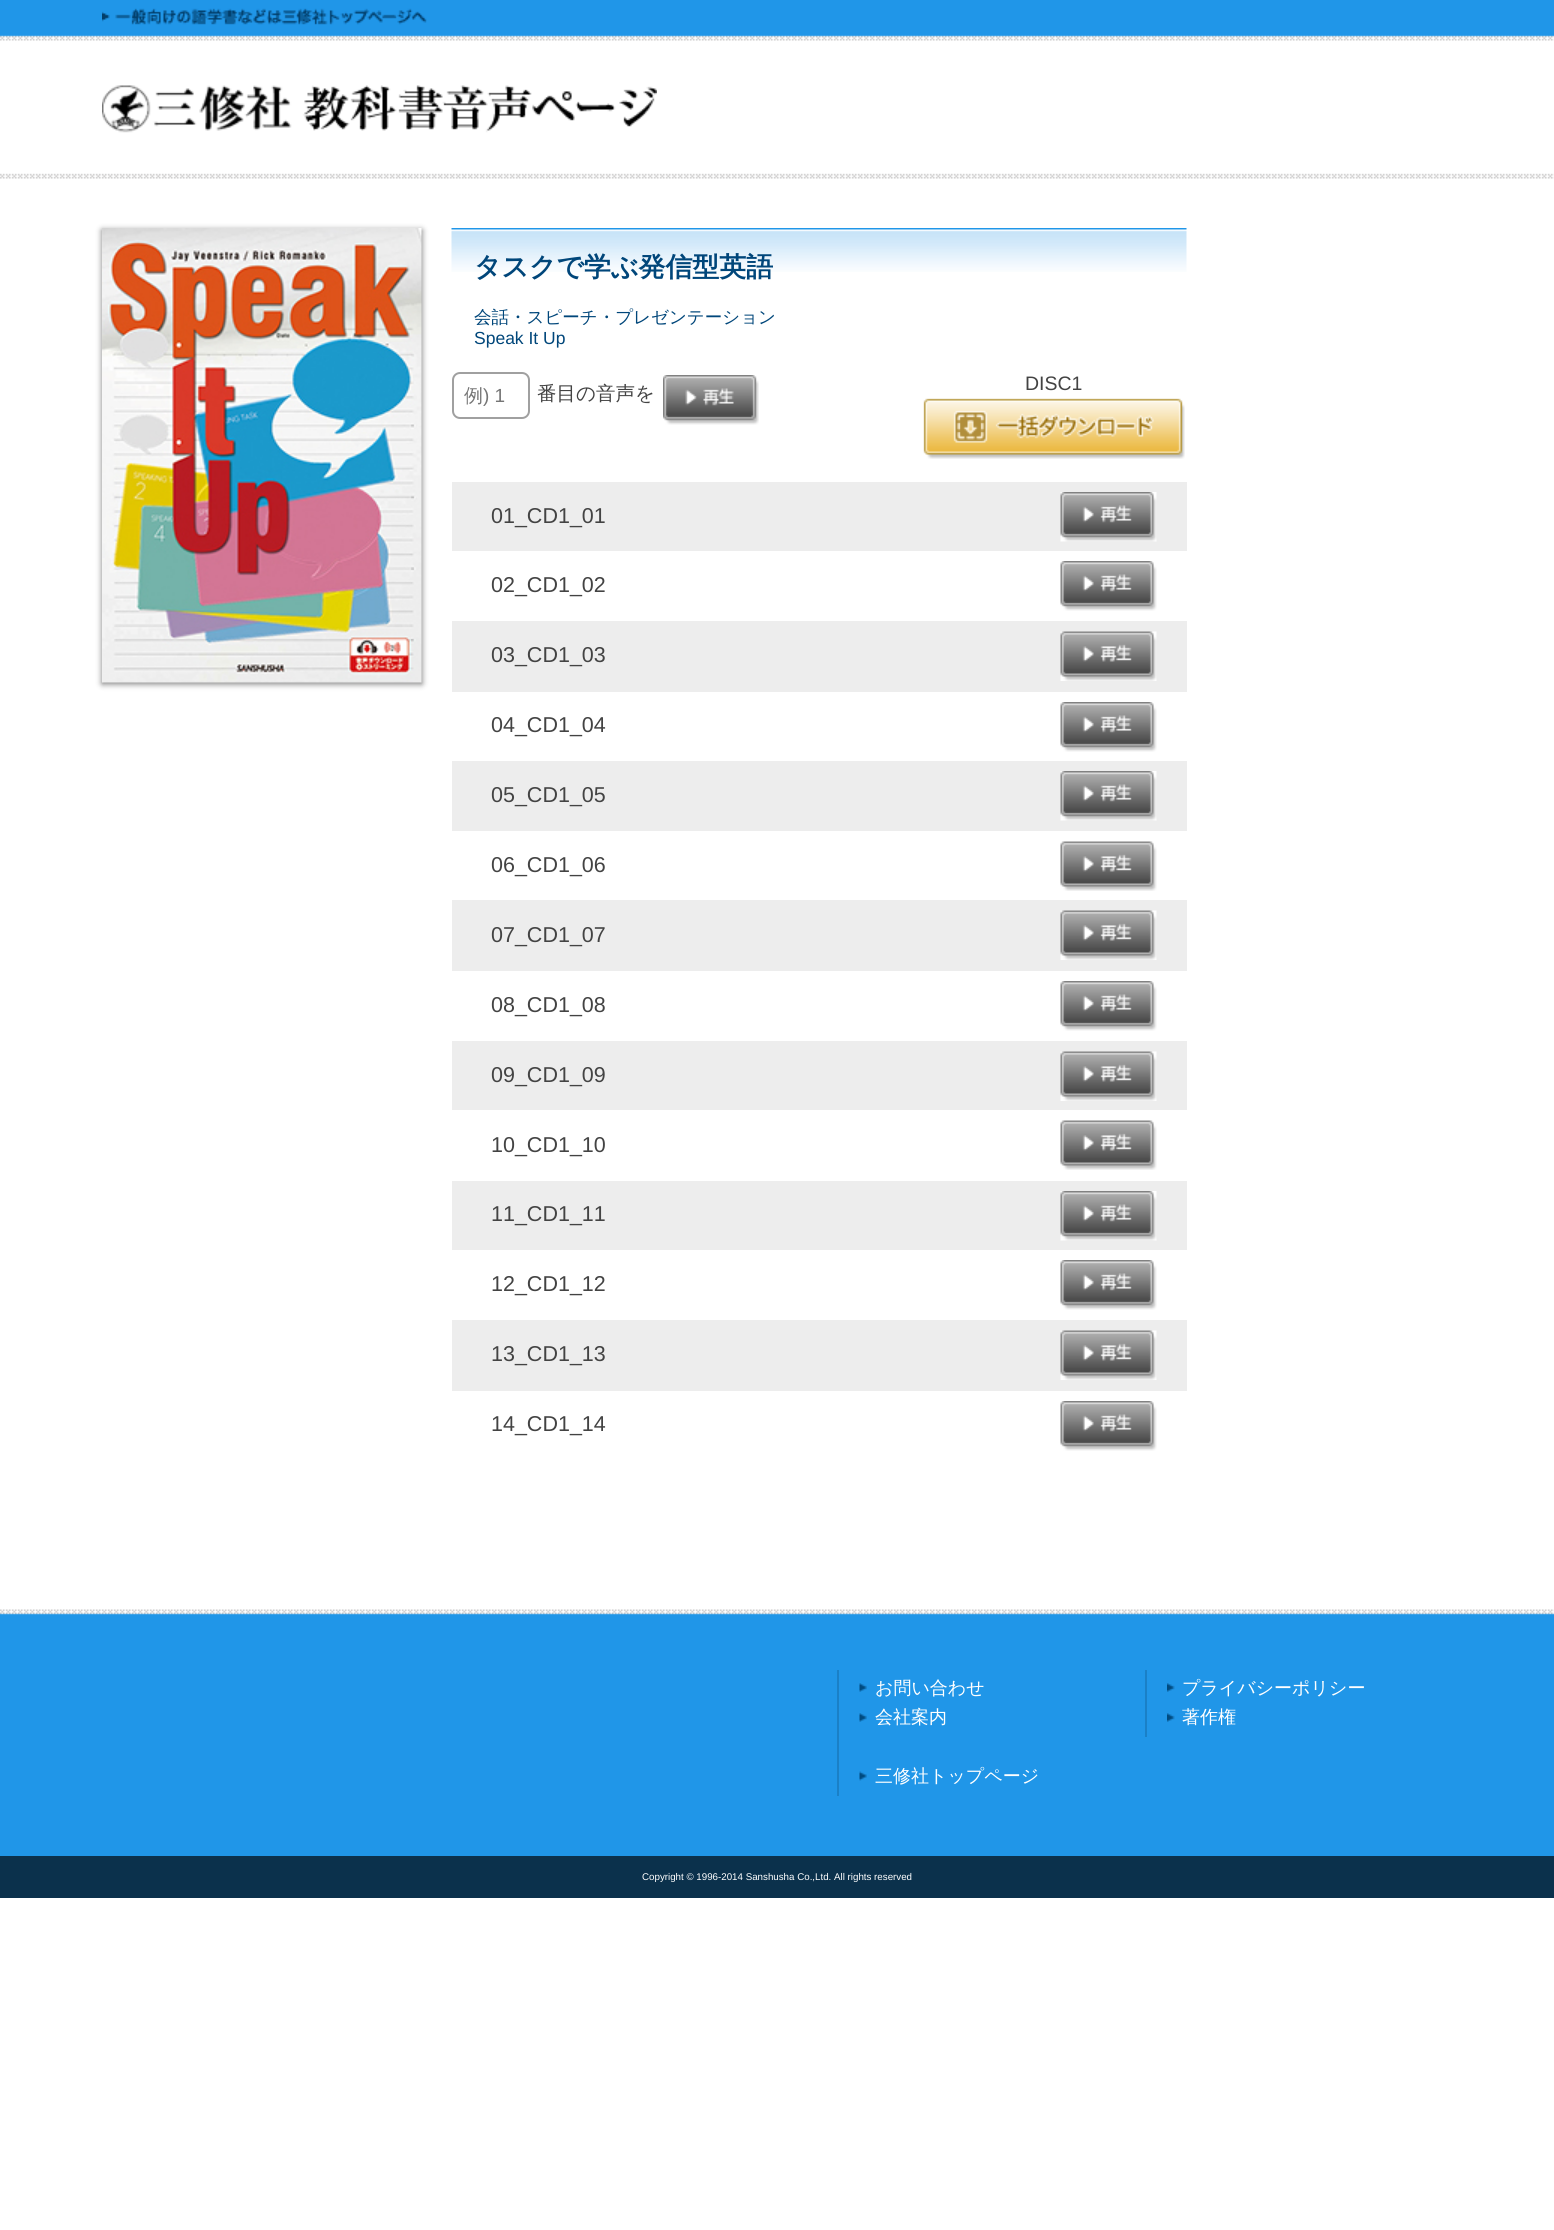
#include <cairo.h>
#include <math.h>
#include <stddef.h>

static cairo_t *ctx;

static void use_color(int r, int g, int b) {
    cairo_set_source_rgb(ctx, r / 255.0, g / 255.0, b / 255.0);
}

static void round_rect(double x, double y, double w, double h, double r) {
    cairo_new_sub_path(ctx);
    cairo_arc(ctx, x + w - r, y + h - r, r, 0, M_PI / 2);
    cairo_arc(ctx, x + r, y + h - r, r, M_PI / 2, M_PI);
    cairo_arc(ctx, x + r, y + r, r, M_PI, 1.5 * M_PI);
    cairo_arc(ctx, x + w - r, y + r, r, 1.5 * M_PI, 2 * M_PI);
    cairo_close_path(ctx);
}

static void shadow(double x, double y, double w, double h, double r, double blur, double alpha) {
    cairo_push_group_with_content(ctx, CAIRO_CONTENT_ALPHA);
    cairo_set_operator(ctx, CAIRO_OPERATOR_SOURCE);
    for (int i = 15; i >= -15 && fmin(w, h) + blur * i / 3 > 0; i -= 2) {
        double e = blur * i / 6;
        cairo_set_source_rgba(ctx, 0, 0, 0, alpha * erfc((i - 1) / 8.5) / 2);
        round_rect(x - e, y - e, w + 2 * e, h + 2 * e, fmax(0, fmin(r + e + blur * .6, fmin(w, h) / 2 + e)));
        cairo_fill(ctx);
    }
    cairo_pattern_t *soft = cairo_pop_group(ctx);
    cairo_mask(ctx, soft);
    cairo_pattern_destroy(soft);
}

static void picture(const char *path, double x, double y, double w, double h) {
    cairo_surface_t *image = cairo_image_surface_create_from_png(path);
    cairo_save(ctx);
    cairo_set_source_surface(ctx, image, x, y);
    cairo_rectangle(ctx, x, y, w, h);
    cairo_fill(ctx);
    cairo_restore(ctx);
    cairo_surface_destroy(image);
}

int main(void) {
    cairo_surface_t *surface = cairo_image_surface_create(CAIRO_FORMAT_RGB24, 1554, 2230);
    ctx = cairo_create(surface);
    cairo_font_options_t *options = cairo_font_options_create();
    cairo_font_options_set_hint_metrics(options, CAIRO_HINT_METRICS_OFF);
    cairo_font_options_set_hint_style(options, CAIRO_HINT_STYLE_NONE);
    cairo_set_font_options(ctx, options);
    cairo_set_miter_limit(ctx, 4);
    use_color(255, 255, 255);
    cairo_paint(ctx);
    picture("img1.png", 0, 0, 1554, 179);
    picture("img2.png", 102, 8, 325, 17);
    picture("img3.png", 102, 85, 555, 48);
    use_color(0, 0, 0);
    shadow(102, 230, 320, 454, 0, 3, 0.52);
    picture("img4.png", 102, 228, 320, 455);
    picture("img5.png", 451, 228, 736, 44);
    cairo_select_font_face(ctx, "WenQuanYi Zen Hei", CAIRO_FONT_SLANT_NORMAL, CAIRO_FONT_WEIGHT_BOLD);
    cairo_set_font_size(ctx, 26.9);
    use_color(0, 70, 122);
    cairo_move_to(ctx, 474, 276);
    cairo_show_text(ctx, "タスクで学ぶ発信型英語");
    cairo_select_font_face(ctx, "WenQuanYi Zen Hei Medium", CAIRO_FONT_SLANT_NORMAL, CAIRO_FONT_WEIGHT_NORMAL);
    cairo_set_font_size(ctx, 17.5);
    cairo_move_to(ctx, 474, 323);
    cairo_show_text(ctx, "会話・スピーチ・プレゼンテーション");
    cairo_select_font_face(ctx, "Liberation Sans", CAIRO_FONT_SLANT_NORMAL, CAIRO_FONT_WEIGHT_NORMAL);
    cairo_move_to(ctx, 474, 344);
    cairo_show_text(ctx, "Speak It Up");
    round_rect(453, 373, 76, 45, 7);
    use_color(160, 160, 160);
    cairo_stroke(ctx);
    cairo_select_font_face(ctx, "WenQuanYi Zen Hei Medium", CAIRO_FONT_SLANT_NORMAL, CAIRO_FONT_WEIGHT_NORMAL);
    cairo_set_font_size(ctx, 19);
    use_color(117, 117, 117);
    cairo_move_to(ctx, 464, 402);
    cairo_show_text(ctx, "例");
    cairo_select_font_face(ctx, "Liberation Sans", CAIRO_FONT_SLANT_NORMAL, CAIRO_FONT_WEIGHT_NORMAL);
    cairo_move_to(ctx, 483, 402);
    cairo_show_text(ctx, ") 1");
    cairo_select_font_face(ctx, "WenQuanYi Zen Hei Medium", CAIRO_FONT_SLANT_NORMAL, CAIRO_FONT_WEIGHT_NORMAL);
    cairo_set_font_size(ctx, 19.5);
    use_color(67, 67, 67);
    cairo_move_to(ctx, 537, 400);
    cairo_show_text(ctx, "番目の音声を");
    picture("img6.png", 663, 375, 96, 50);
    cairo_select_font_face(ctx, "Liberation Sans", CAIRO_FONT_SLANT_NORMAL, CAIRO_FONT_WEIGHT_NORMAL);
    cairo_move_to(ctx, 1025, 390);
    cairo_show_text(ctx, "DISC1");
    picture("img7.png", 923, 398, 262, 61);
    use_color(237, 237, 237);
    cairo_rectangle(ctx, 452, 482, 735, 69);
    cairo_fill(ctx);
    cairo_set_font_size(ctx, 21.5);
    use_color(67, 67, 67);
    cairo_move_to(ctx, 491, 523);
    cairo_show_text(ctx, "01_CD1_01");
    picture("img8.png", 1060, 492, 97, 50);
    cairo_move_to(ctx, 491, 592);
    cairo_show_text(ctx, "02_CD1_02");
    picture("img9.png", 1060, 561, 97, 50);
    use_color(237, 237, 237);
    cairo_rectangle(ctx, 452, 621, 735, 71);
    cairo_fill(ctx);
    use_color(67, 67, 67);
    cairo_move_to(ctx, 491, 662);
    cairo_show_text(ctx, "03_CD1_03");
    picture("img10.png", 1060, 631, 97, 50);
    cairo_move_to(ctx, 491, 732);
    cairo_show_text(ctx, "04_CD1_04");
    picture("img9.png", 1060, 702, 97, 50);
    use_color(237, 237, 237);
    cairo_rectangle(ctx, 452, 761, 735, 70);
    cairo_fill(ctx);
    use_color(67, 67, 67);
    cairo_move_to(ctx, 491, 802);
    cairo_show_text(ctx, "05_CD1_05");
    picture("img8.png", 1060, 771, 97, 50);
    cairo_move_to(ctx, 491, 872);
    cairo_show_text(ctx, "06_CD1_06");
    picture("img11.png", 1060, 841, 97, 50);
    use_color(237, 237, 237);
    cairo_rectangle(ctx, 452, 900, 735, 71);
    cairo_fill(ctx);
    use_color(67, 67, 67);
    cairo_move_to(ctx, 491, 942);
    cairo_show_text(ctx, "07_CD1_07");
    picture("img10.png", 1060, 910, 97, 50);
    cairo_move_to(ctx, 491, 1012);
    cairo_show_text(ctx, "08_CD1_08");
    picture("img9.png", 1060, 981, 97, 50);
    use_color(237, 237, 237);
    cairo_rectangle(ctx, 452, 1041, 735, 69);
    cairo_fill(ctx);
    use_color(67, 67, 67);
    cairo_move_to(ctx, 491, 1082);
    cairo_show_text(ctx, "09_CD1_09");
    picture("img10.png", 1060, 1051, 97, 50);
    cairo_move_to(ctx, 491, 1152);
    cairo_show_text(ctx, "10_CD1_10");
    picture("img11.png", 1060, 1120, 97, 50);
    use_color(237, 237, 237);
    cairo_rectangle(ctx, 452, 1181, 735, 69);
    cairo_fill(ctx);
    use_color(67, 67, 67);
    cairo_move_to(ctx, 491, 1221);
    cairo_show_text(ctx, "11_CD1_11");
    picture("img8.png", 1060, 1191, 97, 50);
    cairo_move_to(ctx, 491, 1291);
    cairo_show_text(ctx, "12_CD1_12");
    picture("img9.png", 1060, 1260, 97, 50);
    use_color(237, 237, 237);
    cairo_rectangle(ctx, 452, 1320, 735, 71);
    cairo_fill(ctx);
    use_color(67, 67, 67);
    cairo_move_to(ctx, 491, 1361);
    cairo_show_text(ctx, "13_CD1_13");
    picture("img10.png", 1060, 1330, 97, 50);
    cairo_move_to(ctx, 491, 1431);
    cairo_show_text(ctx, "14_CD1_14");
    picture("img9.png", 1060, 1401, 97, 50);
    use_color(32, 150, 232);
    cairo_rectangle(ctx, 0, 1615, 1554, 241);
    cairo_fill(ctx);
    picture("img12.png", 0, 1609, 1554, 6);
    use_color(26, 128, 199);
    cairo_rectangle(ctx, 837, 1670, 2, 126);
    cairo_fill(ctx);
    picture("img13.png", 859, 1683, 8, 9);
    cairo_select_font_face(ctx, "WenQuanYi Zen Hei Medium", CAIRO_FONT_SLANT_NORMAL, CAIRO_FONT_WEIGHT_NORMAL);
    cairo_set_font_size(ctx, 18);
    use_color(255, 255, 255);
    cairo_move_to(ctx, 875, 1694);
    cairo_show_text(ctx, "お問い合わせ");
    picture("img13.png", 859, 1713, 8, 9);
    cairo_move_to(ctx, 875, 1723);
    cairo_show_text(ctx, "会社案内");
    picture("img14.png", 859, 1771, 8, 10);
    cairo_move_to(ctx, 875, 1782);
    cairo_show_text(ctx, "三修社トップページ");
    use_color(26, 128, 199);
    cairo_rectangle(ctx, 1145, 1670, 2, 67);
    cairo_fill(ctx);
    picture("img15.png", 1167, 1683, 8, 9);
    use_color(255, 255, 255);
    cairo_move_to(ctx, 1182, 1694);
    cairo_show_text(ctx, "プライバシーポリシー");
    picture("img15.png", 1167, 1713, 8, 9);
    cairo_move_to(ctx, 1182, 1723);
    cairo_show_text(ctx, "著作権");
    use_color(11, 49, 76);
    cairo_rectangle(ctx, 0, 1856, 1554, 42);
    cairo_fill(ctx);
    cairo_select_font_face(ctx, "Liberation Sans", CAIRO_FONT_SLANT_NORMAL, CAIRO_FONT_WEIGHT_NORMAL);
    cairo_set_font_size(ctx, 9.75);
    use_color(255, 255, 255);
    cairo_move_to(ctx, 642, 1880);
    cairo_show_text(ctx, "Copyright © 1996-2014 Sanshusha Co.,Ltd. All rights reserved");
    cairo_surface_write_to_png(surface, "result.png");
    cairo_font_options_destroy(options);
    cairo_destroy(ctx);
    cairo_surface_destroy(surface);
    return 0;
}
